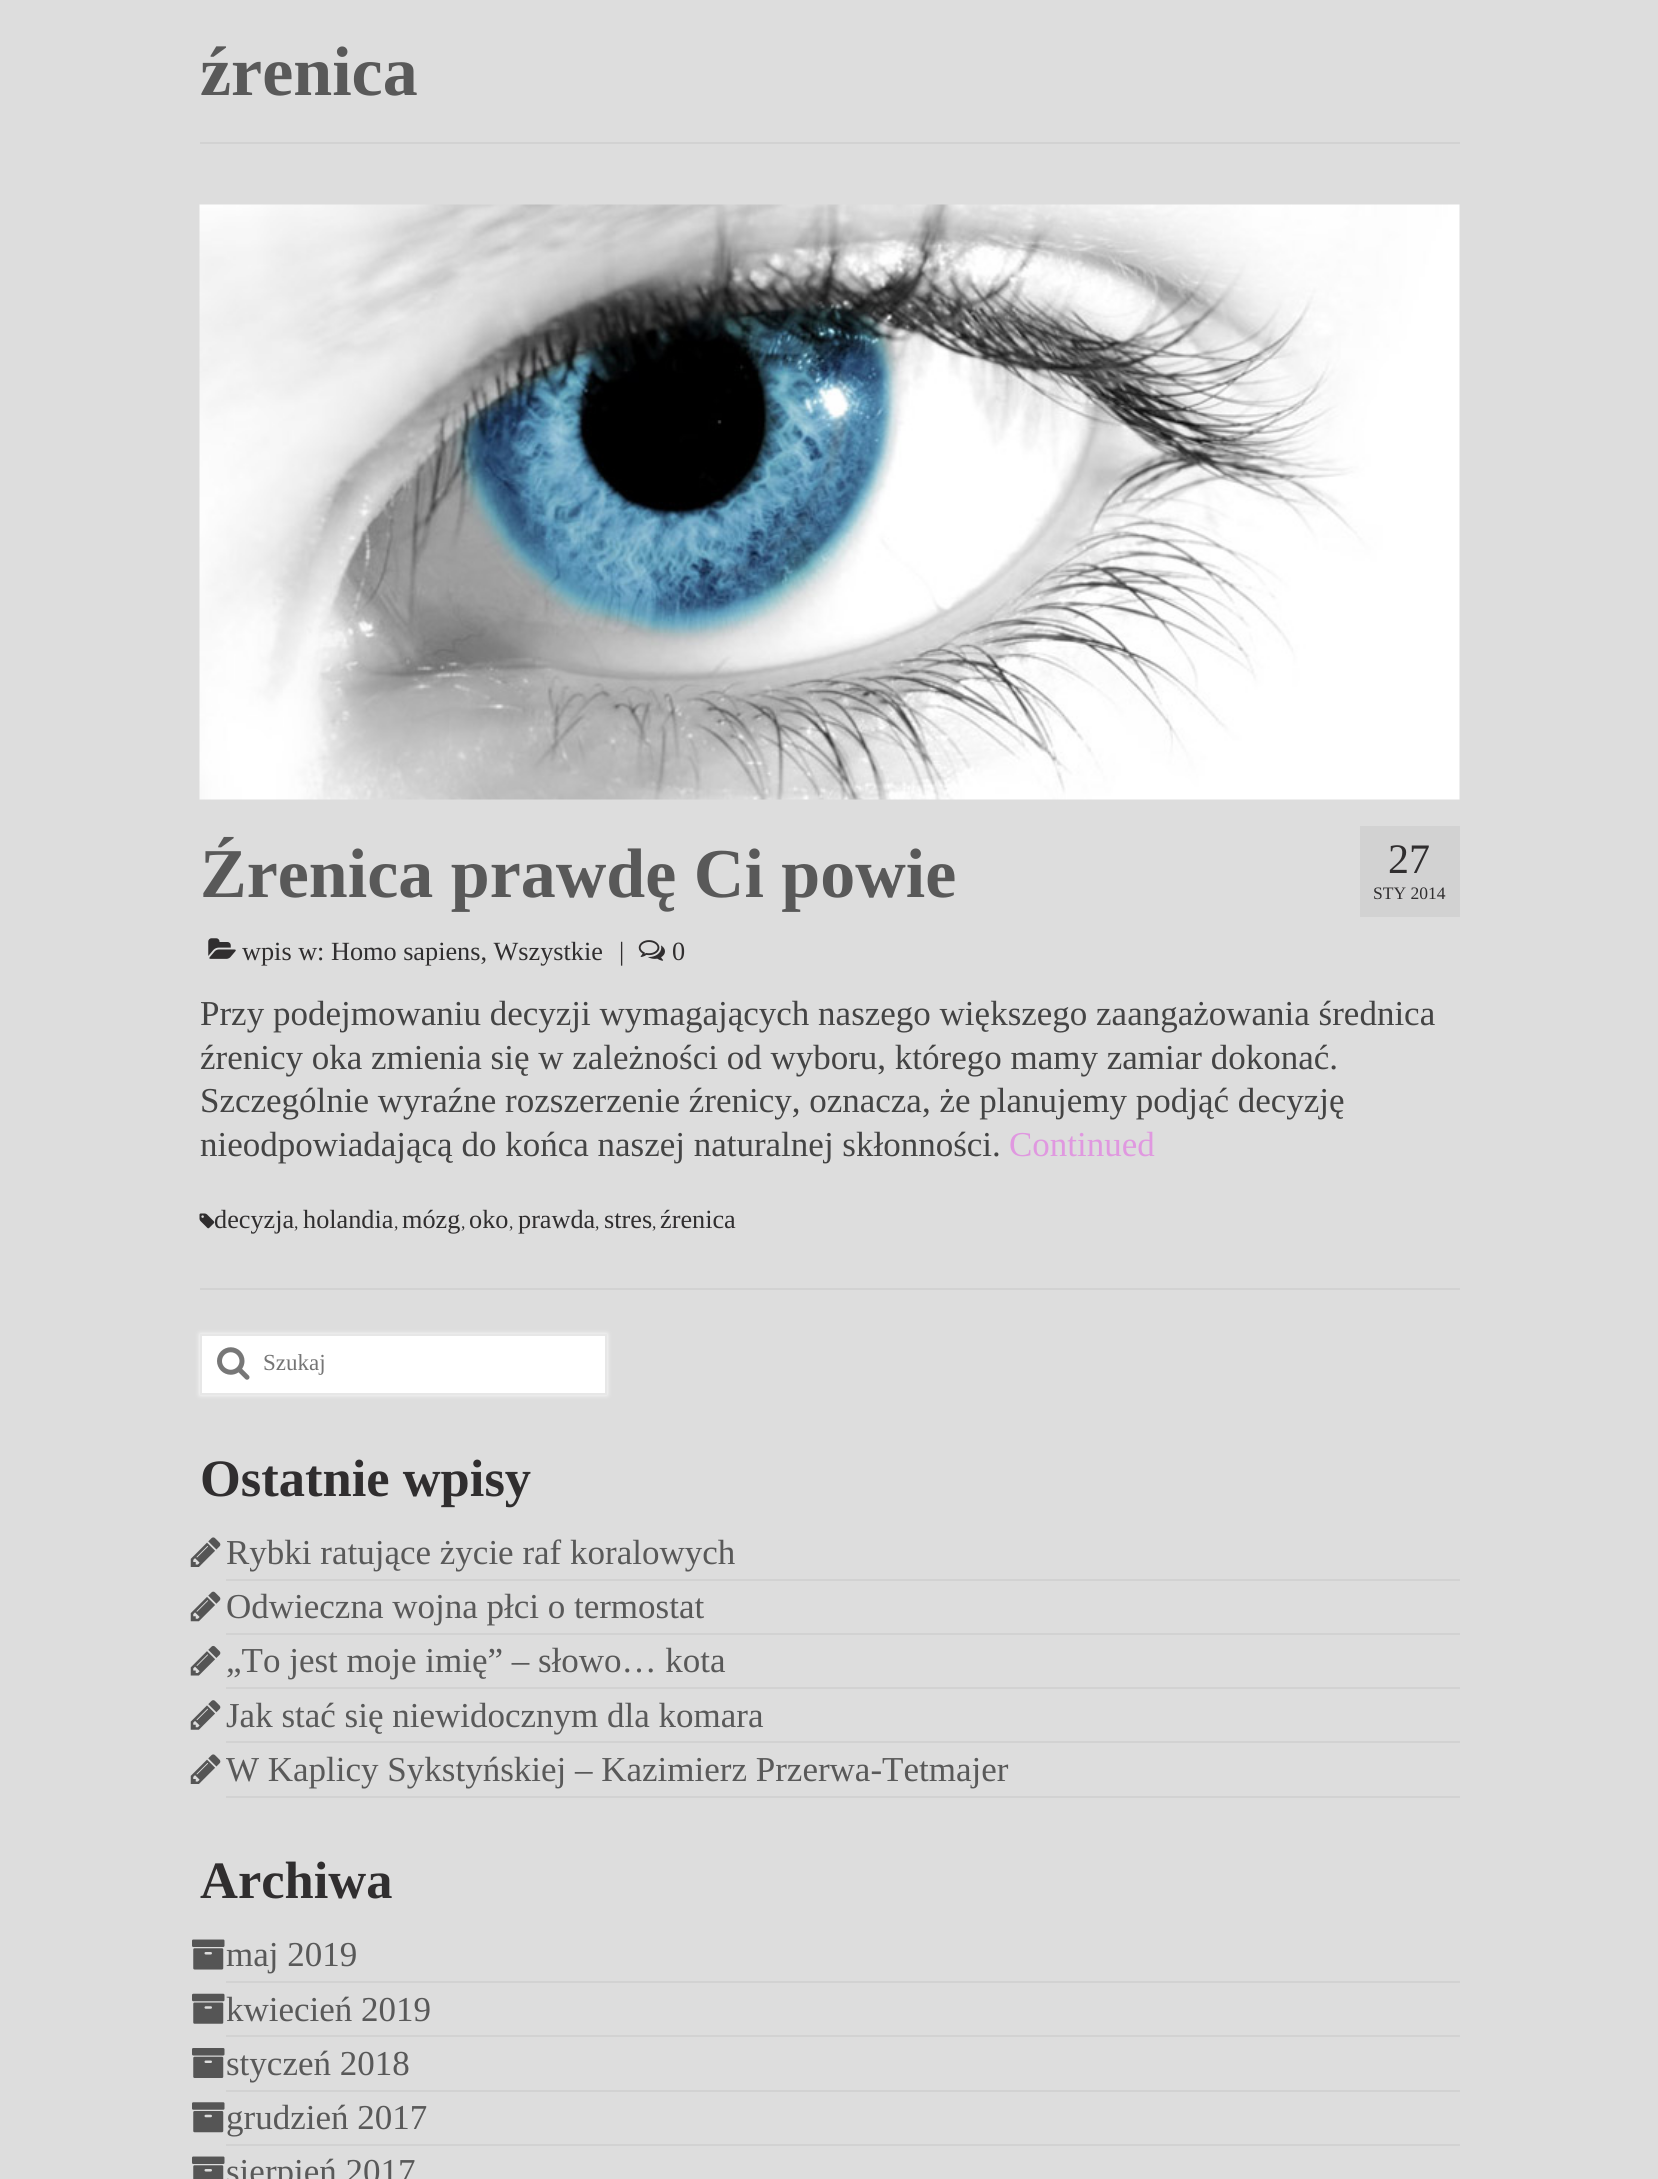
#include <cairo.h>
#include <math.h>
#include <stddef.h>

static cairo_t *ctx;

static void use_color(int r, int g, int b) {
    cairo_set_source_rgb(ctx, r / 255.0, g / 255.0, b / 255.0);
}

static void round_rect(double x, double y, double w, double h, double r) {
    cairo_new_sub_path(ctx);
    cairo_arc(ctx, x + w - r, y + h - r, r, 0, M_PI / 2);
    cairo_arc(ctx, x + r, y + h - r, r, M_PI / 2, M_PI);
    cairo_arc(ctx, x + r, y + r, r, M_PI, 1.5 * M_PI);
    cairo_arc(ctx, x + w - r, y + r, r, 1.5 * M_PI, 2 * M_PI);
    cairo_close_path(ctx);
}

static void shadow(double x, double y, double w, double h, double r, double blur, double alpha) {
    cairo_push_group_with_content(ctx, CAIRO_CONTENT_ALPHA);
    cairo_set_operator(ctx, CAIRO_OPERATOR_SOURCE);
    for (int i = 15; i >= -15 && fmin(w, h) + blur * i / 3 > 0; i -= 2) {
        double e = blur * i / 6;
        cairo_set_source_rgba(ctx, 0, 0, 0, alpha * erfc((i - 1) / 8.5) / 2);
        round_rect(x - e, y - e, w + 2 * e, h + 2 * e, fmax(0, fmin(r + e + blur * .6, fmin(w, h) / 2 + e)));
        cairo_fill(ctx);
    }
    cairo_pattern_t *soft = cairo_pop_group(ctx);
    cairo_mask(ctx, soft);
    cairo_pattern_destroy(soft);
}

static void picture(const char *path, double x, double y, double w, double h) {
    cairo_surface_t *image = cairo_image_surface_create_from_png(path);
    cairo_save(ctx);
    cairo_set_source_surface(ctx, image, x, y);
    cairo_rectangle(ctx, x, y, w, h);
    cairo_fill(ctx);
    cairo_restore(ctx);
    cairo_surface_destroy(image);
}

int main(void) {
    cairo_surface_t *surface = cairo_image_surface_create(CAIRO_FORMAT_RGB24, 1658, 2179);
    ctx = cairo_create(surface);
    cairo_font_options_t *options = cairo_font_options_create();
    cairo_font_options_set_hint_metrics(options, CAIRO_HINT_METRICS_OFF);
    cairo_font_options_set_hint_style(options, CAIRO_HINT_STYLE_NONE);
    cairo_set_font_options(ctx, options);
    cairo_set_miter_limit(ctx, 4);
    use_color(221, 221, 221);
    cairo_paint(ctx);
    use_color(210, 210, 210);
    cairo_rectangle(ctx, 200, 142, 1260, 2);
    cairo_fill(ctx);
    cairo_select_font_face(ctx, "Liberation Serif", CAIRO_FONT_SLANT_NORMAL, CAIRO_FONT_WEIGHT_BOLD);
    cairo_set_font_size(ctx, 70);
    use_color(89, 89, 89);
    cairo_move_to(ctx, 200, 95);
    cairo_show_text(ctx, "źrenica");
    picture("img1.png", 199, 204, 1261, 596);
    cairo_move_to(ctx, 200, 897);
    cairo_show_text(ctx, "Źrenica prawdę Ci powie");
    picture("img2.png", 208, 938, 28, 21);
    cairo_select_font_face(ctx, "Liberation Serif", CAIRO_FONT_SLANT_NORMAL, CAIRO_FONT_WEIGHT_NORMAL);
    cairo_set_font_size(ctx, 26.25);
    use_color(48, 46, 47);
    cairo_move_to(ctx, 242, 960);
    cairo_show_text(ctx, "wpis w: Homo sapiens, Wszystkie");
    cairo_move_to(ctx, 619, 960);
    cairo_show_text(ctx, "|");
    picture("img3.png", 638, 940, 27, 21);
    cairo_move_to(ctx, 672, 960);
    cairo_show_text(ctx, "0");
    use_color(210, 210, 210);
    cairo_rectangle(ctx, 1360, 826, 100, 91);
    cairo_fill(ctx);
    cairo_set_font_size(ctx, 42);
    use_color(48, 46, 47);
    cairo_move_to(ctx, 1388, 873);
    cairo_show_text(ctx, "27");
    cairo_set_font_size(ctx, 17.5);
    cairo_move_to(ctx, 1373, 899);
    cairo_show_text(ctx, "STY 2014");
    cairo_set_font_size(ctx, 35);
    use_color(68, 68, 68);
    cairo_move_to(ctx, 200, 1025);
    cairo_show_text(ctx, "Przy podejmowaniu decyzji wymagających naszego większego zaangażowania średnica");
    cairo_move_to(ctx, 200, 1069);
    cairo_show_text(ctx, "źrenicy oka zmienia się w zależności od wyboru, którego mamy zamiar dokonać.");
    cairo_move_to(ctx, 200, 1112);
    cairo_show_text(ctx, "Szczególnie wyraźne rozszerzenie źrenicy, oznacza, że planujemy podjąć decyzję");
    cairo_move_to(ctx, 200, 1156);
    cairo_show_text(ctx, "nieodpowiadającą do końca naszej naturalnej skłonności.");
    use_color(224, 152, 224);
    cairo_move_to(ctx, 1009, 1156);
    cairo_show_text(ctx, "Continued");
    use_color(210, 210, 210);
    cairo_rectangle(ctx, 200, 1288, 1260, 2);
    cairo_fill(ctx);
    picture("img4.png", 199, 1213, 16, 16);
    cairo_set_font_size(ctx, 26.25);
    use_color(48, 46, 47);
    cairo_move_to(ctx, 214, 1228);
    cairo_show_text(ctx, "decyzja");
    cairo_set_font_size(ctx, 17.5);
    cairo_move_to(ctx, 294, 1228);
    cairo_show_text(ctx, ",");
    cairo_set_font_size(ctx, 26.25);
    cairo_move_to(ctx, 303, 1228);
    cairo_show_text(ctx, "holandia");
    cairo_set_font_size(ctx, 17.5);
    cairo_move_to(ctx, 394, 1228);
    cairo_show_text(ctx, ",");
    cairo_set_font_size(ctx, 26.25);
    cairo_move_to(ctx, 402, 1228);
    cairo_show_text(ctx, "mózg");
    cairo_set_font_size(ctx, 17.5);
    cairo_move_to(ctx, 461, 1228);
    cairo_show_text(ctx, ",");
    cairo_set_font_size(ctx, 26.25);
    cairo_move_to(ctx, 469, 1228);
    cairo_show_text(ctx, "oko");
    cairo_set_font_size(ctx, 17.5);
    cairo_move_to(ctx, 509, 1228);
    cairo_show_text(ctx, ",");
    cairo_set_font_size(ctx, 26.25);
    cairo_move_to(ctx, 518, 1228);
    cairo_show_text(ctx, "prawda");
    cairo_set_font_size(ctx, 17.5);
    cairo_move_to(ctx, 595, 1228);
    cairo_show_text(ctx, ",");
    cairo_set_font_size(ctx, 26.25);
    cairo_move_to(ctx, 604, 1228);
    cairo_show_text(ctx, "stres");
    cairo_set_font_size(ctx, 17.5);
    cairo_move_to(ctx, 652, 1228);
    cairo_show_text(ctx, ",");
    cairo_set_font_size(ctx, 26.25);
    cairo_move_to(ctx, 660, 1228);
    cairo_show_text(ctx, "źrenica");
    use_color(255, 255, 255);
    shadow(200, 1334, 407, 61, 0, 2.5, 1);
    use_color(255, 255, 255);
    cairo_rectangle(ctx, 201, 1335, 405, 59);
    cairo_fill_preserve(ctx);
    use_color(231, 231, 231);
    cairo_stroke(ctx);
    picture("img5.png", 217, 1347, 33, 33);
    cairo_set_font_size(ctx, 23);
    use_color(117, 117, 117);
    cairo_move_to(ctx, 263, 1370);
    cairo_show_text(ctx, "Szukaj");
    cairo_select_font_face(ctx, "Liberation Serif", CAIRO_FONT_SLANT_NORMAL, CAIRO_FONT_WEIGHT_BOLD);
    cairo_set_font_size(ctx, 52.5);
    use_color(48, 46, 47);
    cairo_move_to(ctx, 200, 1496);
    cairo_show_text(ctx, "Ostatnie wpisy");
    use_color(210, 210, 210);
    cairo_rectangle(ctx, 226, 1579, 1234, 2);
    cairo_fill(ctx);
    picture("img6.png", 190, 1537, 31, 30);
    cairo_select_font_face(ctx, "Liberation Serif", CAIRO_FONT_SLANT_NORMAL, CAIRO_FONT_WEIGHT_NORMAL);
    cairo_set_font_size(ctx, 35);
    use_color(89, 89, 89);
    cairo_move_to(ctx, 226, 1564);
    cairo_show_text(ctx, "Rybki ratujące życie raf koralowych");
    use_color(210, 210, 210);
    cairo_rectangle(ctx, 226, 1633, 1234, 2);
    cairo_fill(ctx);
    picture("img7.png", 190, 1591, 31, 31);
    use_color(89, 89, 89);
    cairo_move_to(ctx, 226, 1618);
    cairo_show_text(ctx, "Odwieczna wojna płci o termostat");
    use_color(210, 210, 210);
    cairo_rectangle(ctx, 226, 1687, 1234, 2);
    cairo_fill(ctx);
    picture("img8.png", 190, 1645, 31, 31);
    use_color(89, 89, 89);
    cairo_move_to(ctx, 226, 1672);
    cairo_show_text(ctx, "„To jest moje imię” – słowo… kota");
    use_color(210, 210, 210);
    cairo_rectangle(ctx, 226, 1741, 1234, 2);
    cairo_fill(ctx);
    picture("img9.png", 190, 1700, 31, 30);
    use_color(89, 89, 89);
    cairo_move_to(ctx, 226, 1727);
    cairo_show_text(ctx, "Jak stać się niewidocznym dla komara");
    use_color(210, 210, 210);
    cairo_rectangle(ctx, 226, 1796, 1234, 2);
    cairo_fill(ctx);
    picture("img6.png", 190, 1754, 31, 30);
    use_color(89, 89, 89);
    cairo_move_to(ctx, 226, 1781);
    cairo_show_text(ctx, "W Kaplicy Sykstyńskiej – Kazimierz Przerwa-Tetmajer");
    cairo_select_font_face(ctx, "Liberation Serif", CAIRO_FONT_SLANT_NORMAL, CAIRO_FONT_WEIGHT_BOLD);
    cairo_set_font_size(ctx, 52.5);
    use_color(48, 46, 47);
    cairo_move_to(ctx, 200, 1898);
    cairo_show_text(ctx, "Archiwa");
    use_color(210, 210, 210);
    cairo_rectangle(ctx, 226, 1981, 1234, 2);
    cairo_fill(ctx);
    picture("img10.png", 192, 1939, 33, 31);
    cairo_select_font_face(ctx, "Liberation Serif", CAIRO_FONT_SLANT_NORMAL, CAIRO_FONT_WEIGHT_NORMAL);
    cairo_set_font_size(ctx, 35);
    use_color(89, 89, 89);
    cairo_move_to(ctx, 226, 1966);
    cairo_show_text(ctx, "maj 2019");
    use_color(210, 210, 210);
    cairo_rectangle(ctx, 226, 2035, 1234, 2);
    cairo_fill(ctx);
    picture("img11.png", 192, 1993, 33, 31);
    use_color(89, 89, 89);
    cairo_move_to(ctx, 226, 2021);
    cairo_show_text(ctx, "kwiecień 2019");
    use_color(210, 210, 210);
    cairo_rectangle(ctx, 226, 2090, 1234, 2);
    cairo_fill(ctx);
    picture("img12.png", 192, 2048, 33, 30);
    use_color(89, 89, 89);
    cairo_move_to(ctx, 226, 2075);
    cairo_show_text(ctx, "styczeń 2018");
    use_color(210, 210, 210);
    cairo_rectangle(ctx, 226, 2144, 1234, 2);
    cairo_fill(ctx);
    picture("img13.png", 192, 2102, 33, 31);
    use_color(89, 89, 89);
    cairo_move_to(ctx, 226, 2129);
    cairo_show_text(ctx, "grudzień 2017");
    picture("img14.png", 192, 2156, 33, 23);
    cairo_move_to(ctx, 226, 2183);
    cairo_show_text(ctx, "sierpień 2017");
    cairo_surface_write_to_png(surface, "result.png");
    cairo_font_options_destroy(options);
    cairo_destroy(ctx);
    cairo_surface_destroy(surface);
    return 0;
}
